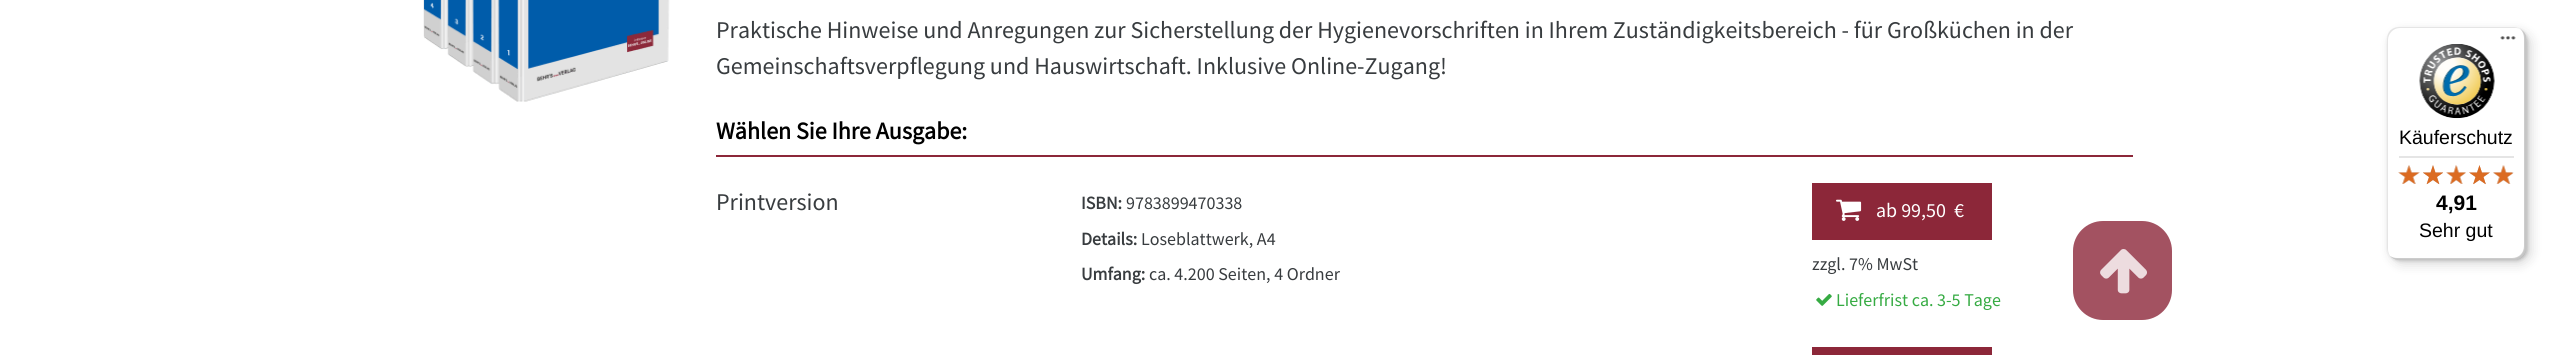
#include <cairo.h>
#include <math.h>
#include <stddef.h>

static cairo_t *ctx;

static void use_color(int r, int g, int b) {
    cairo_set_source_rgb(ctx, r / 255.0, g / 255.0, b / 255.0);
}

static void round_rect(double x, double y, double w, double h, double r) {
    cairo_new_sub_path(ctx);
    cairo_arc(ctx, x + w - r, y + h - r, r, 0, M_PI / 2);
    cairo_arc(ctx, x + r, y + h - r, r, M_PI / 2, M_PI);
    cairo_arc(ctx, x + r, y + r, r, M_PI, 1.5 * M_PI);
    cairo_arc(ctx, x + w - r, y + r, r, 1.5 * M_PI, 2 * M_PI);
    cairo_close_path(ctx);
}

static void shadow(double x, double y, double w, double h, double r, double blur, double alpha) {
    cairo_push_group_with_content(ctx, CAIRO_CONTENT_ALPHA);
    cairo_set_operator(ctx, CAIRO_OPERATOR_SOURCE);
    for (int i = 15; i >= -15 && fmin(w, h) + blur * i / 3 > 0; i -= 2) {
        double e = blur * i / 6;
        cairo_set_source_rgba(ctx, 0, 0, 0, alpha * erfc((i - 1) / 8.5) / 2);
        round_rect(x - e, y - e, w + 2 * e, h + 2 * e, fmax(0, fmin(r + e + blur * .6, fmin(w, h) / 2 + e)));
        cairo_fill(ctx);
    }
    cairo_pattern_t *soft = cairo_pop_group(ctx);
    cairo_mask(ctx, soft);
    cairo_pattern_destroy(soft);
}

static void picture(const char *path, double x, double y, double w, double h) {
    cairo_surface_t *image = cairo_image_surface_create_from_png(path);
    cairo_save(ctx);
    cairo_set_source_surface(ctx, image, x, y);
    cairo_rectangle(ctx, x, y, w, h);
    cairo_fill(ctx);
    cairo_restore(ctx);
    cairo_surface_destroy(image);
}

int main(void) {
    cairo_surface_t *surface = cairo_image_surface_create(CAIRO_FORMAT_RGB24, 2555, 355);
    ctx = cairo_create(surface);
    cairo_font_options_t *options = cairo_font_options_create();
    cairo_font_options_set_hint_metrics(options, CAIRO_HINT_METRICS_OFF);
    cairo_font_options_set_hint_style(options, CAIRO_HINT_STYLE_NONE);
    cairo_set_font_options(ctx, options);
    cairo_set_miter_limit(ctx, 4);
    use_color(255, 255, 255);
    cairo_paint(ctx);
    picture("img1.png", 423, 0, 247, 102);
    cairo_select_font_face(ctx, "Source Sans Pro", CAIRO_FONT_SLANT_NORMAL, CAIRO_FONT_WEIGHT_NORMAL);
    cairo_set_font_size(ctx, 24);
    use_color(56, 60, 63);
    cairo_move_to(ctx, 716, 38);
    cairo_show_text(ctx, "Praktische Hinweise und Anregungen zur Sicherstellung der Hygienevorschriften in Ihrem Zuständigkeitsbereich - für Großküchen in der");
    cairo_move_to(ctx, 716, 74);
    cairo_show_text(ctx, "Gemeinschaftsverpflegung und Hauswirtschaft. Inklusive Online-Zugang!");
    use_color(140, 39, 57);
    cairo_rectangle(ctx, 716, 155, 1417, 2);
    cairo_fill(ctx);
    cairo_select_font_face(ctx, "Source Sans Pro", CAIRO_FONT_SLANT_NORMAL, CAIRO_FONT_WEIGHT_BOLD);
    use_color(0, 0, 0);
    cairo_move_to(ctx, 716, 139);
    cairo_show_text(ctx, "Wählen Sie Ihre Ausgabe:");
    cairo_select_font_face(ctx, "Source Sans Pro", CAIRO_FONT_SLANT_NORMAL, CAIRO_FONT_WEIGHT_NORMAL);
    use_color(56, 60, 63);
    cairo_move_to(ctx, 716, 210);
    cairo_show_text(ctx, "Printversion");
    cairo_select_font_face(ctx, "Source Sans Pro", CAIRO_FONT_SLANT_NORMAL, CAIRO_FONT_WEIGHT_BOLD);
    cairo_set_font_size(ctx, 18);
    cairo_move_to(ctx, 1081, 209);
    cairo_show_text(ctx, "ISBN:");
    cairo_select_font_face(ctx, "Source Sans Pro", CAIRO_FONT_SLANT_NORMAL, CAIRO_FONT_WEIGHT_NORMAL);
    cairo_move_to(ctx, 1126, 209);
    cairo_show_text(ctx, "9783899470338");
    cairo_select_font_face(ctx, "Source Sans Pro", CAIRO_FONT_SLANT_NORMAL, CAIRO_FONT_WEIGHT_BOLD);
    cairo_move_to(ctx, 1081, 245);
    cairo_show_text(ctx, "Details:");
    cairo_select_font_face(ctx, "Source Sans Pro", CAIRO_FONT_SLANT_NORMAL, CAIRO_FONT_WEIGHT_NORMAL);
    cairo_move_to(ctx, 1141, 245);
    cairo_show_text(ctx, "Loseblattwerk, A4");
    cairo_select_font_face(ctx, "Source Sans Pro", CAIRO_FONT_SLANT_NORMAL, CAIRO_FONT_WEIGHT_BOLD);
    cairo_move_to(ctx, 1081, 280);
    cairo_show_text(ctx, "Umfang:");
    cairo_select_font_face(ctx, "Source Sans Pro", CAIRO_FONT_SLANT_NORMAL, CAIRO_FONT_WEIGHT_NORMAL);
    cairo_move_to(ctx, 1149, 280);
    cairo_show_text(ctx, "ca. 4.200 Seiten, 4 Ordner");
    use_color(140, 39, 57);
    cairo_rectangle(ctx, 1812, 183, 180, 57);
    cairo_fill(ctx);
    picture("img2.png", 1836, 199, 26, 22);
    cairo_set_font_size(ctx, 20);
    use_color(255, 255, 255);
    cairo_move_to(ctx, 1876, 217);
    cairo_show_text(ctx, "ab 99,50  €");
    cairo_set_font_size(ctx, 18);
    use_color(56, 60, 63);
    cairo_move_to(ctx, 1812, 270);
    cairo_show_text(ctx, "zzgl. 7% MwSt");
    picture("img3.png", 1816, 293, 16, 13);
    use_color(54, 171, 67);
    cairo_move_to(ctx, 1836, 306);
    cairo_show_text(ctx, "Lieferfrist ca. 3-5 Tage");
    use_color(140, 39, 57);
    cairo_rectangle(ctx, 1812, 347, 180, 8);
    cairo_fill(ctx);
    use_color(163, 82, 97);
    round_rect(2073, 221, 99, 99, 30);
    cairo_fill(ctx);
    picture("img4.png", 2100, 249, 47, 45);
    use_color(0, 0, 0);
    shadow(2391, 32, 140, 232, 12, 6, 0.15);
    shadow(2388, 29, 140, 232, 12, 1.5, 0.15);
    use_color(255, 255, 255);
    round_rect(2387, 27, 139, 233, 12);
    cairo_fill(ctx);
    use_color(229, 229, 229);
    cairo_new_path(ctx);
    cairo_move_to(ctx, 2400, 28);
    cairo_line_to(ctx, 2516, 28);
    cairo_curve_to(ctx, 2518, 28, 2520, 29, 2521, 30);
    cairo_curve_to(ctx, 2519, 28, 2517, 27, 2514, 27);
    cairo_line_to(ctx, 2399, 27);
    cairo_curve_to(ctx, 2392, 27, 2387, 32, 2387, 39);
    cairo_line_to(ctx, 2387, 248);
    cairo_curve_to(ctx, 2387, 251, 2388, 254, 2390, 256);
    cairo_curve_to(ctx, 2389, 254, 2388, 252, 2388, 249);
    cairo_line_to(ctx, 2388, 40);
    cairo_curve_to(ctx, 2388, 34, 2393, 28, 2400, 28);
    cairo_close_path(ctx);
    cairo_fill(ctx);
    cairo_set_source_rgba(ctx, 0, 0, 0, 0.2);
    cairo_new_path(ctx);
    cairo_move_to(ctx, 2390, 256);
    cairo_curve_to(ctx, 2392, 258, 2395, 260, 2399, 260);
    cairo_line_to(ctx, 2514, 260);
    cairo_curve_to(ctx, 2521, 260, 2526, 255, 2526, 248);
    cairo_line_to(ctx, 2526, 39);
    cairo_curve_to(ctx, 2526, 34, 2523, 30, 2519, 28);
    cairo_curve_to(ctx, 2522, 30, 2524, 34, 2524, 38);
    cairo_line_to(ctx, 2524, 246);
    cairo_curve_to(ctx, 2524, 253, 2519, 258, 2512, 258);
    cairo_line_to(ctx, 2397, 258);
    cairo_curve_to(ctx, 2394, 258, 2392, 257, 2390, 256);
    cairo_close_path(ctx);
    cairo_fill(ctx);
    cairo_set_source_rgba(ctx, 0.196, 0.196, 0.196, 0.2);
    cairo_new_path(ctx);
    cairo_move_to(ctx, 2390, 256);
    cairo_curve_to(ctx, 2392, 258, 2395, 260, 2399, 260);
    cairo_line_to(ctx, 2514, 260);
    cairo_curve_to(ctx, 2521, 260, 2526, 255, 2526, 248);
    cairo_line_to(ctx, 2526, 39);
    cairo_curve_to(ctx, 2526, 36, 2525, 33, 2523, 31);
    cairo_curve_to(ctx, 2524, 33, 2525, 35, 2525, 38);
    cairo_line_to(ctx, 2525, 247);
    cairo_curve_to(ctx, 2525, 253, 2520, 259, 2513, 259);
    cairo_line_to(ctx, 2398, 259);
    cairo_curve_to(ctx, 2395, 259, 2392, 258, 2390, 256);
    cairo_close_path(ctx);
    cairo_fill(ctx);
    cairo_set_source_rgba(ctx, 1, 1, 1, 0.3);
    cairo_new_path(ctx);
    cairo_move_to(ctx, 2390, 256);
    cairo_curve_to(ctx, 2392, 258, 2395, 260, 2399, 260);
    cairo_line_to(ctx, 2514, 260);
    cairo_curve_to(ctx, 2521, 260, 2526, 255, 2526, 248);
    cairo_line_to(ctx, 2526, 39);
    cairo_curve_to(ctx, 2526, 35, 2524, 32, 2522, 30);
    cairo_curve_to(ctx, 2524, 32, 2525, 35, 2525, 38);
    cairo_line_to(ctx, 2525, 247);
    cairo_curve_to(ctx, 2525, 253, 2520, 259, 2513, 259);
    cairo_line_to(ctx, 2398, 259);
    cairo_curve_to(ctx, 2395, 259, 2392, 258, 2390, 256);
    cairo_close_path(ctx);
    cairo_fill(ctx);
    picture("img5.png", 2500, 36, 16, 4);
    picture("img6.png", 2419, 44, 76, 75);
    cairo_select_font_face(ctx, "Liberation Sans", CAIRO_FONT_SLANT_NORMAL, CAIRO_FONT_WEIGHT_NORMAL);
    cairo_set_font_size(ctx, 19.5);
    use_color(0, 0, 0);
    cairo_move_to(ctx, 2399, 144);
    cairo_show_text(ctx, "Käuferschutz");
    use_color(229, 229, 229);
    cairo_rectangle(ctx, 2399, 156, 115, 2);
    cairo_fill(ctx);
    picture("img7.png", 2398, 165, 22, 19);
    picture("img8.png", 2423, 165, 20, 19);
    picture("img9.png", 2446, 165, 20, 19);
    picture("img10.png", 2469, 165, 21, 19);
    picture("img11.png", 2493, 165, 21, 19);
    picture("img12.png", 2398, 165, 22, 19);
    picture("img13.png", 2423, 165, 20, 20);
    picture("img14.png", 2446, 165, 20, 19);
    picture("img15.png", 2469, 165, 21, 20);
    picture("img16.png", 2493, 165, 20, 19);
    cairo_select_font_face(ctx, "Liberation Sans", CAIRO_FONT_SLANT_NORMAL, CAIRO_FONT_WEIGHT_BOLD);
    cairo_set_font_size(ctx, 21);
    use_color(0, 0, 0);
    cairo_move_to(ctx, 2436, 210);
    cairo_show_text(ctx, "4,91");
    cairo_select_font_face(ctx, "Liberation Sans", CAIRO_FONT_SLANT_NORMAL, CAIRO_FONT_WEIGHT_NORMAL);
    cairo_set_font_size(ctx, 19.5);
    cairo_move_to(ctx, 2419, 237);
    cairo_show_text(ctx, "Sehr gut");
    cairo_surface_write_to_png(surface, "result.png");
    cairo_font_options_destroy(options);
    cairo_destroy(ctx);
    cairo_surface_destroy(surface);
    return 0;
}
